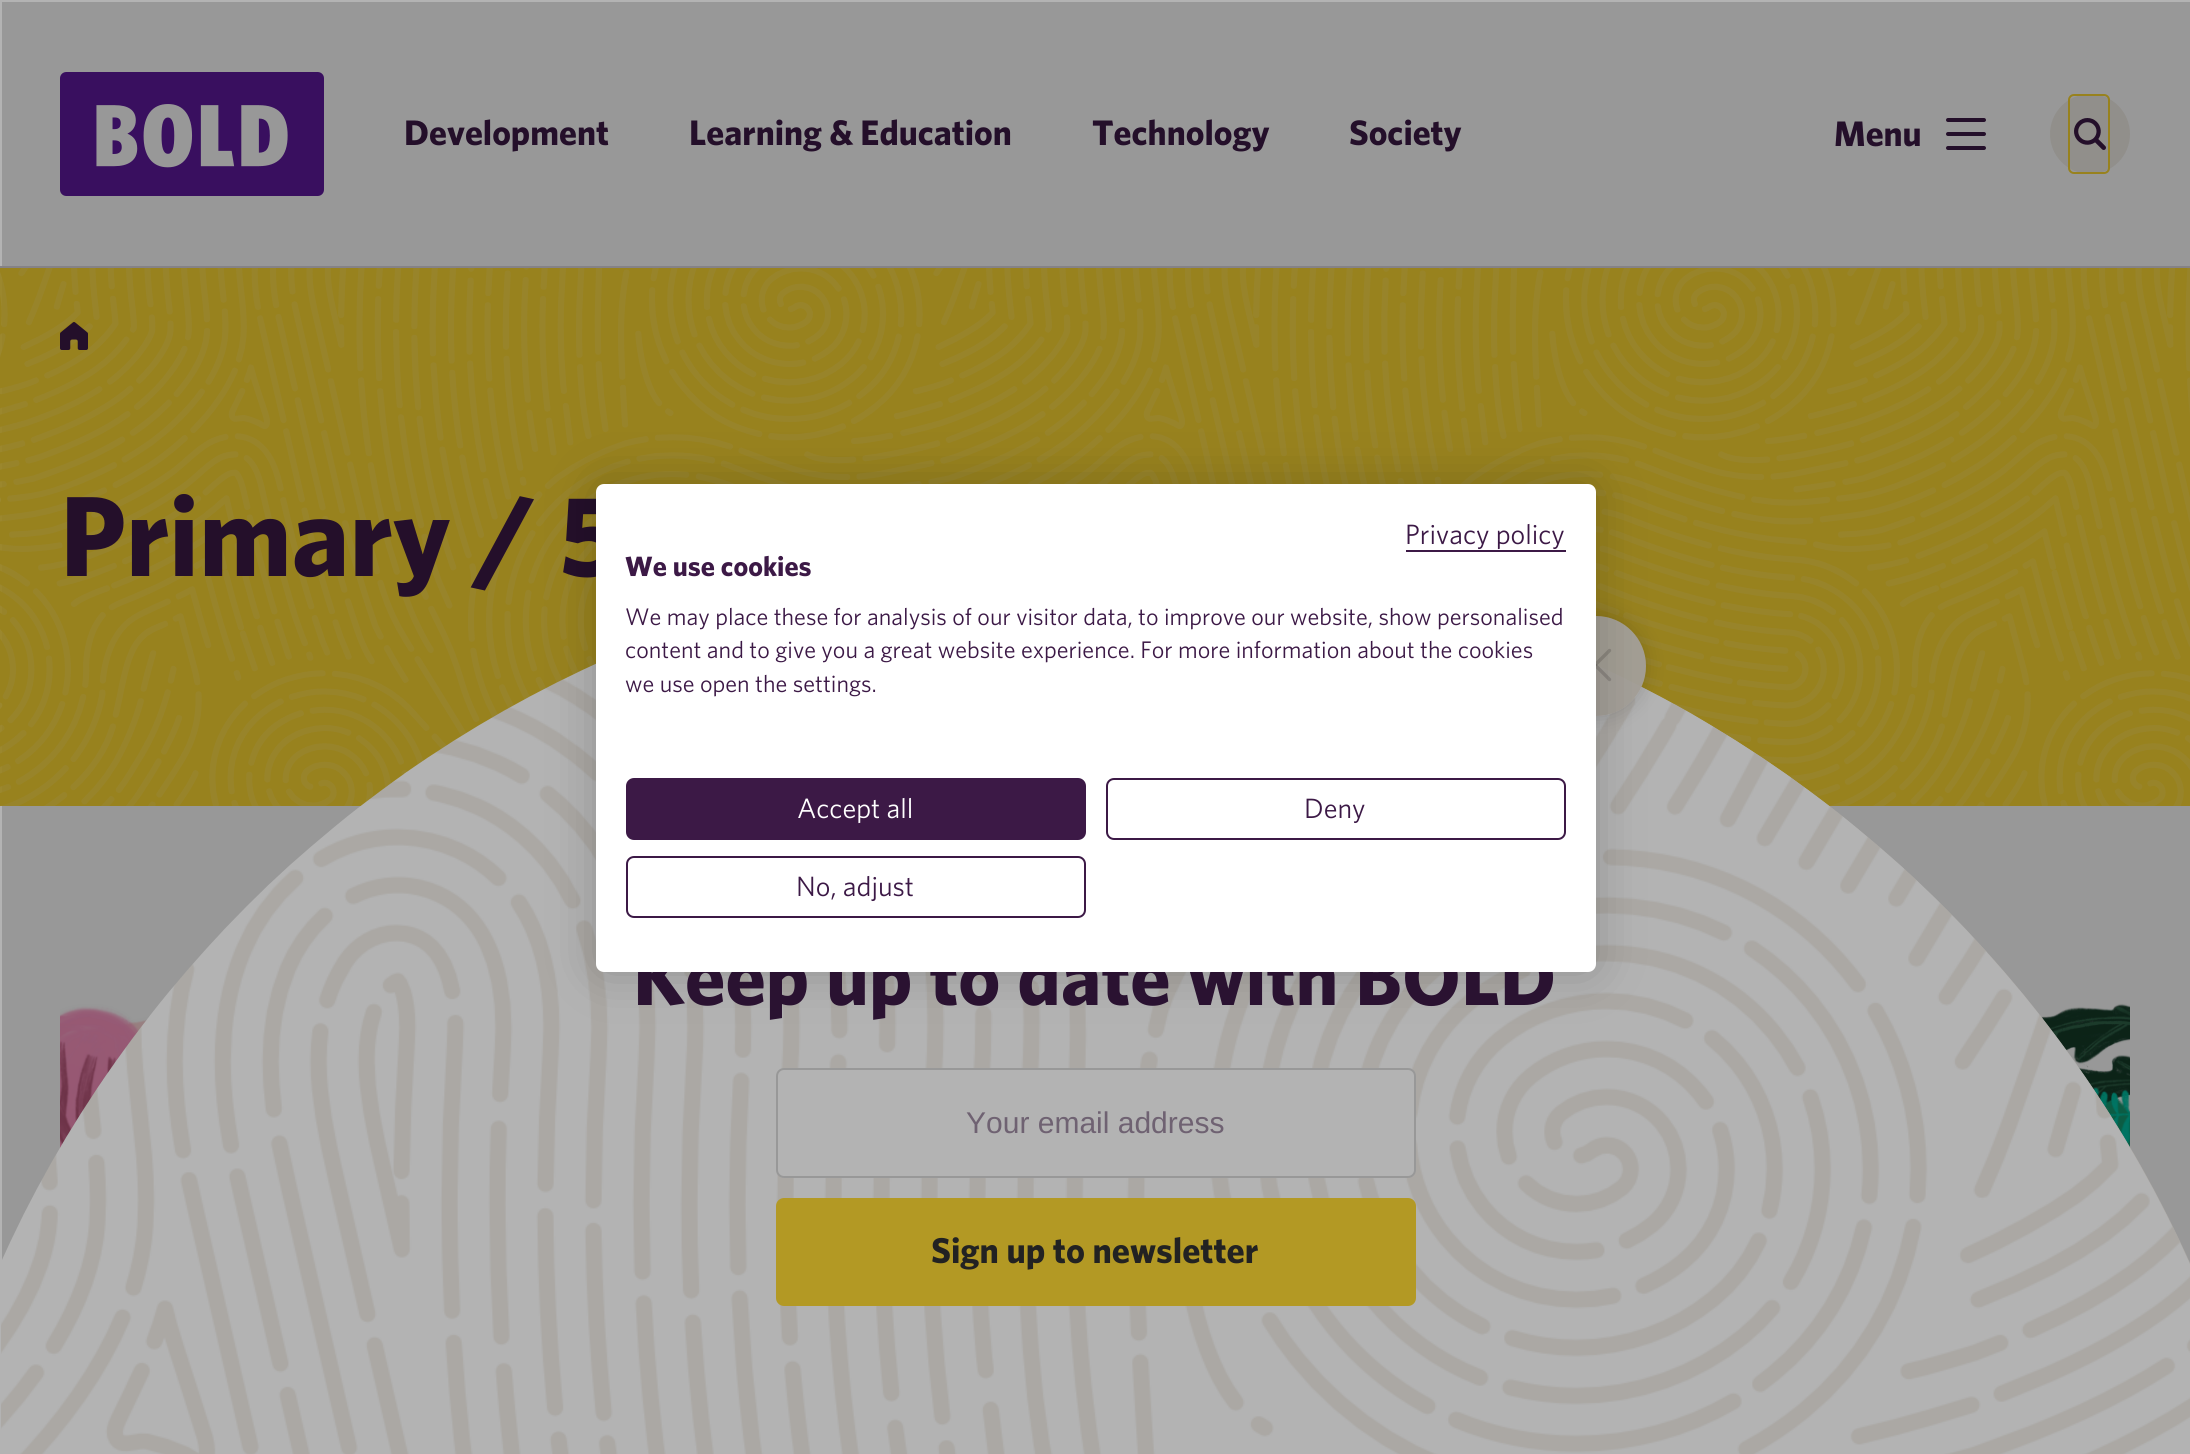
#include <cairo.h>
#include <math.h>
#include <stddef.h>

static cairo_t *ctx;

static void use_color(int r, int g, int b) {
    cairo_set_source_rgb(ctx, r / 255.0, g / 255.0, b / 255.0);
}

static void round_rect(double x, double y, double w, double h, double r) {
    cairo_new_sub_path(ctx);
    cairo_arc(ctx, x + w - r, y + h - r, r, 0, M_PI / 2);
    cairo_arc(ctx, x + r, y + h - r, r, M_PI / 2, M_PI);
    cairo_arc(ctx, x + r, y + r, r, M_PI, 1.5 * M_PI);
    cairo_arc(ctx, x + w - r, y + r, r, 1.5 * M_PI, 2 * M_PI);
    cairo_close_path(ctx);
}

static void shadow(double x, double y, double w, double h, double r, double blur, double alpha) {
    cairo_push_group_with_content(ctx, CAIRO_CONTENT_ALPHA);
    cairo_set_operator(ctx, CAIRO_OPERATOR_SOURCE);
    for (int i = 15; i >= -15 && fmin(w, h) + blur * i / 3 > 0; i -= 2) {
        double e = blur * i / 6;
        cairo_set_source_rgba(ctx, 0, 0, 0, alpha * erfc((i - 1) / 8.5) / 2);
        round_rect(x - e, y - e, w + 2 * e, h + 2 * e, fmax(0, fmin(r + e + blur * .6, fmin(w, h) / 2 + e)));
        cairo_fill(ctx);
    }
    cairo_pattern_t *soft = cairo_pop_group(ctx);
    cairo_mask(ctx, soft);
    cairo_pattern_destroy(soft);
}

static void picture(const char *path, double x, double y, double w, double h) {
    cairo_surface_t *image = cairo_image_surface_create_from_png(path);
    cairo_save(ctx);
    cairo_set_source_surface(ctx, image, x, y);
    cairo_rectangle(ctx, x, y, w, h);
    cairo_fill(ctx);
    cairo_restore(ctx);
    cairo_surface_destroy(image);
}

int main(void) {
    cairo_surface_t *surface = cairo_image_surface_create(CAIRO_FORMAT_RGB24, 2190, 1454);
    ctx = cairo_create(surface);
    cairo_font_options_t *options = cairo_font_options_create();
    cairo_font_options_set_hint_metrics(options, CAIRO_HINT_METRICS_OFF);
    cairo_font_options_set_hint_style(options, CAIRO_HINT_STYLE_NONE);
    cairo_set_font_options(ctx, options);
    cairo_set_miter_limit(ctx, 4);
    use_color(179, 179, 179);
    cairo_paint(ctx);
    use_color(152, 152, 152);
    cairo_rectangle(ctx, 2, 2, 2188, 1261);
    cairo_fill(ctx);
    picture("img1.png", 60, 72, 264, 124);
    cairo_select_font_face(ctx, "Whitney", CAIRO_FONT_SLANT_NORMAL, CAIRO_FONT_WEIGHT_BOLD);
    cairo_set_font_size(ctx, 35.5);
    use_color(36, 15, 42);
    cairo_move_to(ctx, 404, 145);
    cairo_show_text(ctx, "Development");
    cairo_move_to(ctx, 689, 145);
    cairo_show_text(ctx, "Learning & Education");
    cairo_move_to(ctx, 1092, 145);
    cairo_show_text(ctx, "Technology");
    cairo_move_to(ctx, 1349, 145);
    cairo_show_text(ctx, "Society");
    round_rect(1946, 118, 40, 4, 2);
    cairo_fill(ctx);
    cairo_move_to(ctx, 1834, 146);
    cairo_show_text(ctx, "Menu");
    round_rect(1946, 132, 40, 4, 2);
    cairo_fill(ctx);
    round_rect(1946, 146, 40, 4, 2);
    cairo_fill(ctx);
    use_color(145, 143, 139);
    cairo_arc(ctx, 2090, 134, 40, 0, 2 * M_PI);
    cairo_fill(ctx);
    picture("img2.png", 2074, 118, 32, 32);
    round_rect(2069, 95, 40, 78, 5);
    use_color(152, 130, 30);
    cairo_stroke(ctx);
    use_color(133, 130, 134);
    cairo_rectangle(ctx, 0, 266, 2190, 2);
    cairo_fill(ctx);
    use_color(152, 130, 30);
    cairo_rectangle(ctx, 0, 268, 2190, 538);
    cairo_fill(ctx);
    picture("img3.png", 0, 268, 2190, 538);
    picture("img4.png", 60, 322, 28, 28);
    cairo_set_font_size(ctx, 114.25);
    use_color(36, 15, 42);
    cairo_move_to(ctx, 60, 576);
    cairo_show_text(ctx, "Primary / 5");
    picture("img5.png", 60, 1003, 100, 145);
    picture("img6.png", 2026, 998, 104, 149);
    cairo_save(ctx);
    cairo_rectangle(ctx, 2, 2, 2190, 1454);
    cairo_clip(ctx);
    use_color(171, 168, 164);
    round_rect(-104, 556, 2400, 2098, 1200);
    cairo_fill(ctx);
    cairo_restore(ctx);
    picture("img7.png", 1, 663, 2189, 791);
    cairo_save(ctx);
    cairo_set_fill_rule(ctx, CAIRO_FILL_RULE_EVEN_ODD);
    cairo_new_path(ctx);
    cairo_move_to(ctx, 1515, 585);
    cairo_line_to(ctx, 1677, 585);
    cairo_line_to(ctx, 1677, 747);
    cairo_line_to(ctx, 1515, 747);
    cairo_close_path(ctx);
    cairo_move_to(ctx, 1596, 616);
    cairo_curve_to(ctx, 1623.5, 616, 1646, 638.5, 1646, 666);
    cairo_curve_to(ctx, 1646, 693.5, 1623.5, 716, 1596, 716);
    cairo_curve_to(ctx, 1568.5, 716, 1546, 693.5, 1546, 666);
    cairo_curve_to(ctx, 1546, 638.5, 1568.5, 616, 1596, 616);
    cairo_close_path(ctx);
    cairo_clip(ctx);
    use_color(0, 0, 0);
    shadow(1546, 616, 100, 100, 50, 10, 0.15);
    cairo_restore(ctx);
    cairo_set_source_rgba(ctx, 0.643, 0.624, 0.592, 0.97);
    cairo_arc(ctx, 1596, 666, 50, 0, 2 * M_PI);
    cairo_fill(ctx);
    cairo_new_path(ctx);
    cairo_move_to(ctx, 1580.5, 650.5);
    cairo_line_to(ctx, 1609.5, 679.5);
    cairo_set_source_rgba(ctx, 0, 0, 0, 0.15);
    cairo_set_line_width(ctx, 3.4);
    cairo_set_line_cap(ctx, CAIRO_LINE_CAP_ROUND);
    cairo_stroke(ctx);
    cairo_new_path(ctx);
    cairo_move_to(ctx, 1609.5, 650.5);
    cairo_line_to(ctx, 1580.5, 679.5);
    cairo_stroke(ctx);
    use_color(0, 0, 0);
    shadow(596, 484, 1000, 488, 8, 24, 0.2);
    cairo_select_font_face(ctx, "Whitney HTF", CAIRO_FONT_SLANT_NORMAL, CAIRO_FONT_WEIGHT_BOLD);
    cairo_set_font_size(ctx, 80);
    use_color(42, 18, 49);
    cairo_move_to(ctx, 633, 1005);
    cairo_show_text(ctx, "Keep up to date with BOLD");
    use_color(255, 255, 255);
    round_rect(596, 484, 1000, 488, 8);
    cairo_fill(ctx);
    cairo_select_font_face(ctx, "Whitney", CAIRO_FONT_SLANT_NORMAL, CAIRO_FONT_WEIGHT_NORMAL);
    cairo_set_font_size(ctx, 28);
    use_color(60, 25, 70);
    cairo_move_to(ctx, 1405, 544);
    cairo_show_text(ctx, "Privacy policy");
    cairo_rectangle(ctx, 1406, 550, 160, 2);
    cairo_fill(ctx);
    cairo_select_font_face(ctx, "Whitney", CAIRO_FONT_SLANT_NORMAL, CAIRO_FONT_WEIGHT_BOLD);
    cairo_move_to(ctx, 625, 576);
    cairo_show_text(ctx, "We use cookies");
    cairo_select_font_face(ctx, "Whitney", CAIRO_FONT_SLANT_NORMAL, CAIRO_FONT_WEIGHT_NORMAL);
    cairo_set_font_size(ctx, 24);
    cairo_move_to(ctx, 625, 625);
    cairo_show_text(ctx, "We may place these for analysis of our visitor data, to improve our website, show personalised");
    cairo_move_to(ctx, 625, 658);
    cairo_show_text(ctx, "content and to give you a great website experience. For more information about the cookies");
    cairo_move_to(ctx, 625, 692);
    cairo_show_text(ctx, "we use open the settings.");
    round_rect(627, 779, 458, 60, 7);
    cairo_fill_preserve(ctx);
    cairo_set_line_width(ctx, 2);
    cairo_set_line_cap(ctx, CAIRO_LINE_CAP_BUTT);
    cairo_stroke(ctx);
    cairo_set_font_size(ctx, 28);
    use_color(255, 255, 255);
    cairo_move_to(ctx, 797, 818);
    cairo_show_text(ctx, "Accept all");
    round_rect(1107, 779, 458, 60, 7);
    use_color(60, 25, 70);
    cairo_stroke(ctx);
    cairo_move_to(ctx, 1304, 818);
    cairo_show_text(ctx, "Deny");
    round_rect(627, 857, 458, 60, 7);
    cairo_stroke(ctx);
    cairo_move_to(ctx, 796, 896);
    cairo_show_text(ctx, "No, adjust");
    use_color(179, 179, 179);
    round_rect(776, 1068, 640, 110, 8);
    cairo_fill(ctx);
    round_rect(777, 1069, 638, 108, 7);
    cairo_set_source_rgba(ctx, 0, 0, 0, 0.15);
    cairo_stroke(ctx);
    cairo_select_font_face(ctx, "Liberation Sans", CAIRO_FONT_SLANT_NORMAL, CAIRO_FONT_WEIGHT_NORMAL);
    cairo_set_font_size(ctx, 30);
    use_color(111, 98, 114);
    cairo_move_to(ctx, 966, 1133);
    cairo_show_text(ctx, "Your email address");
    use_color(179, 153, 36);
    round_rect(776, 1198, 640, 108, 8);
    cairo_fill(ctx);
    cairo_select_font_face(ctx, "Whitney HTF", CAIRO_FONT_SLANT_NORMAL, CAIRO_FONT_WEIGHT_BOLD);
    cairo_set_font_size(ctx, 36);
    use_color(34, 34, 34);
    cairo_move_to(ctx, 931, 1263);
    cairo_show_text(ctx, "Sign up to newsletter");
    cairo_surface_write_to_png(surface, "result.png");
    cairo_font_options_destroy(options);
    cairo_destroy(ctx);
    cairo_surface_destroy(surface);
    return 0;
}
